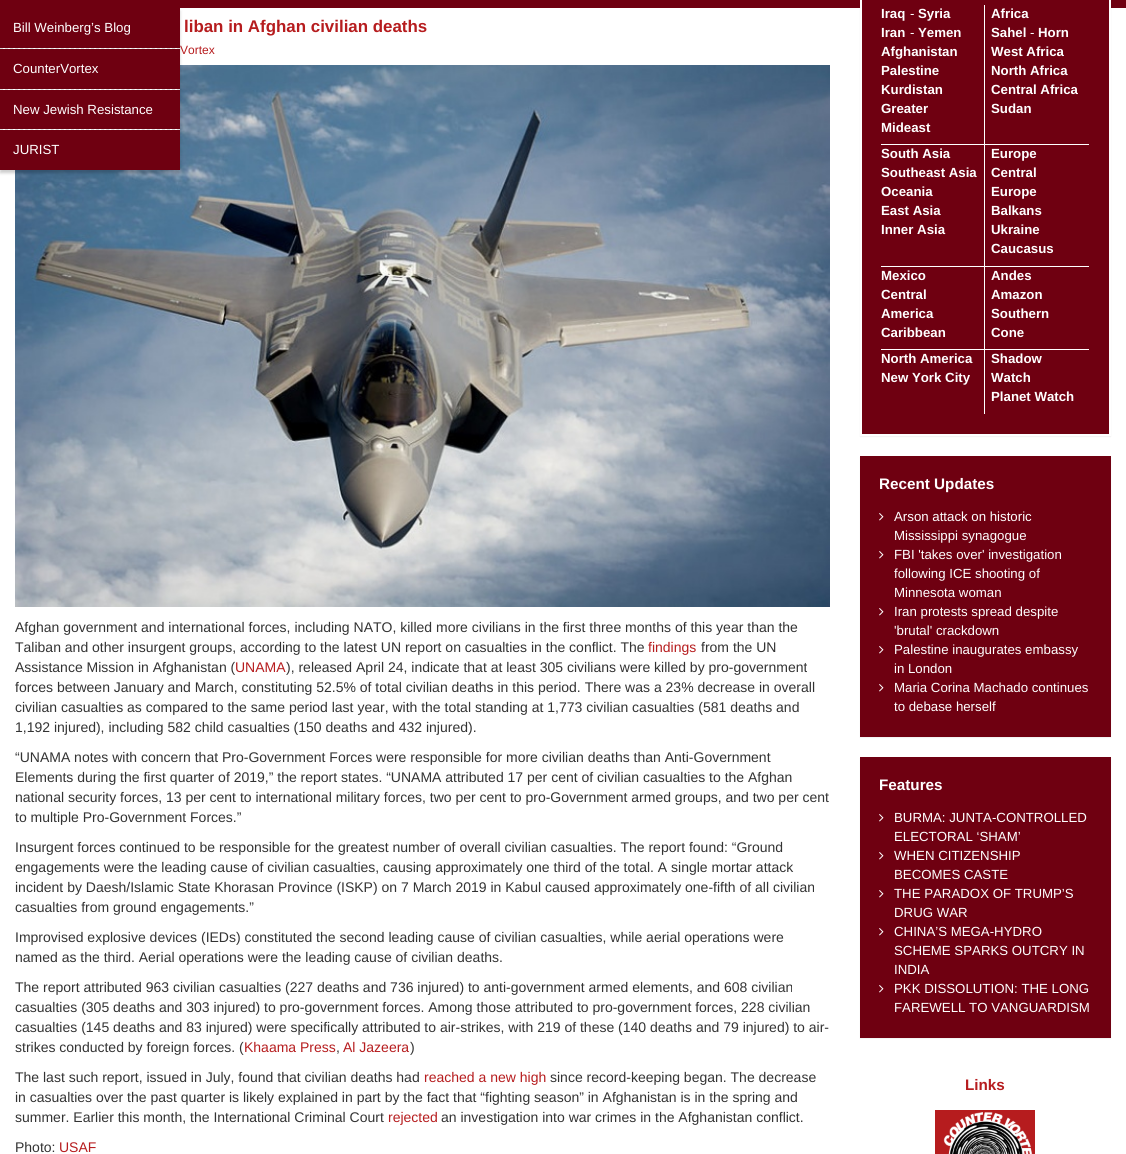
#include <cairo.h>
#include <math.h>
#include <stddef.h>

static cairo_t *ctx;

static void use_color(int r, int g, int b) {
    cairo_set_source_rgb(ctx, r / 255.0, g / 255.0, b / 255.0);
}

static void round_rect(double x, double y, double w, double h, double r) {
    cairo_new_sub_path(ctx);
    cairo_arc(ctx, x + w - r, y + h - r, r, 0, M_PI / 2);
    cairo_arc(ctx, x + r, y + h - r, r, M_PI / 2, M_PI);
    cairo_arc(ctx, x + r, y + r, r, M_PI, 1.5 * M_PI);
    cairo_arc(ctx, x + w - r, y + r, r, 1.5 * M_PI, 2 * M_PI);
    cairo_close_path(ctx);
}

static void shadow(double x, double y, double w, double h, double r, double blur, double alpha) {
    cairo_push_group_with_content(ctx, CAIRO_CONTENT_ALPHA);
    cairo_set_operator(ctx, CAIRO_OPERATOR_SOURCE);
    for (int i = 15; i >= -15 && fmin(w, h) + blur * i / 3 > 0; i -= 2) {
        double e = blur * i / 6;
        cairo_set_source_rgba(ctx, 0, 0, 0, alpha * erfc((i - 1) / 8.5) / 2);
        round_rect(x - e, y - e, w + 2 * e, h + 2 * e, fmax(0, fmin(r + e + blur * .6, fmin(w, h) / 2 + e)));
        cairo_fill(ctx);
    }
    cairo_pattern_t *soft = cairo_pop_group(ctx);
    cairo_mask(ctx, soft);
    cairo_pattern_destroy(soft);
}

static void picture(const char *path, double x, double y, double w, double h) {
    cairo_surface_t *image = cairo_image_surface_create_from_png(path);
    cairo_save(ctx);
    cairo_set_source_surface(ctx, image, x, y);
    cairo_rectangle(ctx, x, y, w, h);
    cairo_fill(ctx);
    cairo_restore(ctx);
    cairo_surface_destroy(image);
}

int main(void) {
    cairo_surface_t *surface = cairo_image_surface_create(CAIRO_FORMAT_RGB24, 1126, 1154);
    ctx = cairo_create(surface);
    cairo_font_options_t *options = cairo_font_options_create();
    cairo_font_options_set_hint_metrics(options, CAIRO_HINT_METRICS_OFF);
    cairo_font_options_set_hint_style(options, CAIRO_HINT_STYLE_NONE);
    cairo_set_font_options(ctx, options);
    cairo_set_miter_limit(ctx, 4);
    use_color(255, 255, 255);
    cairo_paint(ctx);
    cairo_select_font_face(ctx, "Liberation Sans", CAIRO_FONT_SLANT_NORMAL, CAIRO_FONT_WEIGHT_BOLD);
    cairo_set_font_size(ctx, 16.9);
    use_color(182, 28, 30);
    cairo_move_to(ctx, 184, 32);
    cairo_show_text(ctx, "liban in Afghan civilian deaths");
    cairo_select_font_face(ctx, "Liberation Sans", CAIRO_FONT_SLANT_NORMAL, CAIRO_FONT_WEIGHT_NORMAL);
    cairo_set_font_size(ctx, 12);
    cairo_move_to(ctx, 180, 54);
    cairo_show_text(ctx, "Vortex");
    picture("img1.png", 15, 65, 815, 542);
    cairo_set_font_size(ctx, 14);
    use_color(51, 51, 51);
    cairo_move_to(ctx, 15, 632);
    cairo_show_text(ctx, "Afghan government and international forces, including NATO, killed more civilians in the first three months of this year than the");
    cairo_move_to(ctx, 15, 652);
    cairo_show_text(ctx, "Taliban and other insurgent groups, according to the latest UN report on casualties in the conflict. The");
    use_color(182, 28, 30);
    cairo_move_to(ctx, 648, 652);
    cairo_show_text(ctx, "findings");
    use_color(51, 51, 51);
    cairo_move_to(ctx, 701, 652);
    cairo_show_text(ctx, "from the UN");
    cairo_move_to(ctx, 15, 672);
    cairo_show_text(ctx, "Assistance Mission in Afghanistan (");
    use_color(182, 28, 30);
    cairo_move_to(ctx, 235, 672);
    cairo_show_text(ctx, "UNAMA");
    use_color(51, 51, 51);
    cairo_move_to(ctx, 286, 672);
    cairo_show_text(ctx, "), released April 24, indicate that at least 305 civilians were killed by pro-government");
    cairo_move_to(ctx, 15, 692);
    cairo_show_text(ctx, "forces between January and March, constituting 52.5% of total civilian deaths in this period. There was a 23% decrease in overall");
    cairo_move_to(ctx, 15, 712);
    cairo_show_text(ctx, "civilian casualties as compared to the same period last year, with the total standing at 1,773 civilian casualties (581 deaths and");
    cairo_move_to(ctx, 15, 732);
    cairo_show_text(ctx, "1,192 injured), including 582 child casualties (150 deaths and 432 injured).");
    cairo_move_to(ctx, 15, 762);
    cairo_show_text(ctx, "“UNAMA notes with concern that Pro-Government Forces were responsible for more civilian deaths than Anti-Government");
    cairo_move_to(ctx, 15, 782);
    cairo_show_text(ctx, "Elements during the first quarter of 2019,” the report states. “UNAMA attributed 17 per cent of civilian casualties to the Afghan");
    cairo_move_to(ctx, 15, 802);
    cairo_show_text(ctx, "national security forces, 13 per cent to international military forces, two per cent to pro-Government armed groups, and two per cent");
    cairo_move_to(ctx, 15, 822);
    cairo_show_text(ctx, "to multiple Pro-Government Forces.”");
    cairo_move_to(ctx, 15, 852);
    cairo_show_text(ctx, "Insurgent forces continued to be responsible for the greatest number of overall civilian casualties. The report found: “Ground");
    cairo_move_to(ctx, 15, 872);
    cairo_show_text(ctx, "engagements were the leading cause of civilian casualties, causing approximately one third of the total. A single mortar attack");
    cairo_move_to(ctx, 15, 892);
    cairo_show_text(ctx, "incident by Daesh/Islamic State Khorasan Province (ISKP) on 7 March 2019 in Kabul caused approximately one-fifth of all civilian");
    cairo_move_to(ctx, 15, 912);
    cairo_show_text(ctx, "casualties from ground engagements.”");
    cairo_move_to(ctx, 15, 942);
    cairo_show_text(ctx, "Improvised explosive devices (IEDs) constituted the second leading cause of civilian casualties, while aerial operations were");
    cairo_move_to(ctx, 15, 962);
    cairo_show_text(ctx, "named as the third. Aerial operations were the leading cause of civilian deaths.");
    cairo_move_to(ctx, 15, 992);
    cairo_show_text(ctx, "The report attributed 963 civilian casualties (227 deaths and 736 injured) to anti-government armed elements, and 608 civilian");
    cairo_move_to(ctx, 15, 1012);
    cairo_show_text(ctx, "casualties (305 deaths and 303 injured) to pro-government forces. Among those attributed to pro-government forces, 228 civilian");
    cairo_move_to(ctx, 15, 1032);
    cairo_show_text(ctx, "casualties (145 deaths and 83 injured) were specifically attributed to air-strikes, with 219 of these (140 deaths and 79 injured) to air-");
    cairo_move_to(ctx, 15, 1052);
    cairo_show_text(ctx, "strikes conducted by foreign forces. (");
    use_color(182, 28, 30);
    cairo_move_to(ctx, 244, 1052);
    cairo_show_text(ctx, "Khaama Press");
    use_color(51, 51, 51);
    cairo_move_to(ctx, 336, 1052);
    cairo_show_text(ctx, ",");
    use_color(182, 28, 30);
    cairo_move_to(ctx, 343, 1052);
    cairo_show_text(ctx, "Al Jazeera");
    use_color(51, 51, 51);
    cairo_move_to(ctx, 410, 1052);
    cairo_show_text(ctx, ")");
    cairo_move_to(ctx, 15, 1082);
    cairo_show_text(ctx, "The last such report, issued in July, found that civilian deaths had");
    use_color(182, 28, 30);
    cairo_move_to(ctx, 424, 1082);
    cairo_show_text(ctx, "reached a new high");
    use_color(51, 51, 51);
    cairo_move_to(ctx, 550, 1082);
    cairo_show_text(ctx, "since record-keeping began. The decrease");
    cairo_move_to(ctx, 15, 1102);
    cairo_show_text(ctx, "in casualties over the past quarter is likely explained in part by the fact that “fighting season” in Afghanistan is in the spring and");
    cairo_move_to(ctx, 15, 1122);
    cairo_show_text(ctx, "summer. Earlier this month, the International Criminal Court");
    use_color(182, 28, 30);
    cairo_move_to(ctx, 388, 1122);
    cairo_show_text(ctx, "rejected");
    use_color(51, 51, 51);
    cairo_move_to(ctx, 441, 1122);
    cairo_show_text(ctx, "an investigation into war crimes in the Afghanistan conflict.");
    cairo_move_to(ctx, 15, 1152);
    cairo_show_text(ctx, "Photo:");
    use_color(182, 28, 30);
    cairo_move_to(ctx, 59, 1152);
    cairo_show_text(ctx, "USAF");
    use_color(111, 0, 17);
    cairo_rectangle(ctx, 0, 0, 1126, 8);
    cairo_fill(ctx);
    use_color(0, 0, 0);
    shadow(860, -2, 251, 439, 0, 0.5, 0.06);
    use_color(111, 0, 17);
    cairo_rectangle(ctx, 861, -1, 249, 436);
    cairo_fill_preserve(ctx);
    use_color(255, 255, 255);
    cairo_stroke(ctx);
    cairo_rectangle(ctx, 984, 5, 1, 409);
    cairo_fill(ctx);
    cairo_rectangle(ctx, 881, 144, 208, 1);
    cairo_fill(ctx);
    cairo_select_font_face(ctx, "Liberation Sans", CAIRO_FONT_SLANT_NORMAL, CAIRO_FONT_WEIGHT_BOLD);
    cairo_set_font_size(ctx, 13.25);
    cairo_move_to(ctx, 881, 18);
    cairo_show_text(ctx, "Iraq");
    cairo_select_font_face(ctx, "Liberation Sans", CAIRO_FONT_SLANT_NORMAL, CAIRO_FONT_WEIGHT_NORMAL);
    cairo_move_to(ctx, 910, 18);
    cairo_show_text(ctx, "-");
    cairo_select_font_face(ctx, "Liberation Sans", CAIRO_FONT_SLANT_NORMAL, CAIRO_FONT_WEIGHT_BOLD);
    cairo_move_to(ctx, 918, 18);
    cairo_show_text(ctx, "Syria");
    cairo_move_to(ctx, 881, 37);
    cairo_show_text(ctx, "Iran");
    cairo_select_font_face(ctx, "Liberation Sans", CAIRO_FONT_SLANT_NORMAL, CAIRO_FONT_WEIGHT_NORMAL);
    cairo_move_to(ctx, 910, 37);
    cairo_show_text(ctx, "-");
    cairo_select_font_face(ctx, "Liberation Sans", CAIRO_FONT_SLANT_NORMAL, CAIRO_FONT_WEIGHT_BOLD);
    cairo_move_to(ctx, 918, 37);
    cairo_show_text(ctx, "Yemen");
    cairo_move_to(ctx, 881, 56);
    cairo_show_text(ctx, "Afghanistan");
    cairo_move_to(ctx, 881, 75);
    cairo_show_text(ctx, "Palestine");
    cairo_move_to(ctx, 881, 94);
    cairo_show_text(ctx, "Kurdistan");
    cairo_move_to(ctx, 881, 113);
    cairo_show_text(ctx, "Greater");
    cairo_move_to(ctx, 881, 132);
    cairo_show_text(ctx, "Mideast");
    cairo_move_to(ctx, 991, 18);
    cairo_show_text(ctx, "Africa");
    cairo_move_to(ctx, 991, 37);
    cairo_show_text(ctx, "Sahel");
    cairo_select_font_face(ctx, "Liberation Sans", CAIRO_FONT_SLANT_NORMAL, CAIRO_FONT_WEIGHT_NORMAL);
    cairo_move_to(ctx, 1030, 37);
    cairo_show_text(ctx, "-");
    cairo_select_font_face(ctx, "Liberation Sans", CAIRO_FONT_SLANT_NORMAL, CAIRO_FONT_WEIGHT_BOLD);
    cairo_move_to(ctx, 1038, 37);
    cairo_show_text(ctx, "Horn");
    cairo_move_to(ctx, 991, 56);
    cairo_show_text(ctx, "West Africa");
    cairo_move_to(ctx, 991, 75);
    cairo_show_text(ctx, "North Africa");
    cairo_move_to(ctx, 991, 94);
    cairo_show_text(ctx, "Central Africa");
    cairo_move_to(ctx, 991, 113);
    cairo_show_text(ctx, "Sudan");
    cairo_rectangle(ctx, 881, 266, 208, 1);
    cairo_fill(ctx);
    cairo_move_to(ctx, 881, 158);
    cairo_show_text(ctx, "South Asia");
    cairo_move_to(ctx, 881, 177);
    cairo_show_text(ctx, "Southeast Asia");
    cairo_move_to(ctx, 881, 196);
    cairo_show_text(ctx, "Oceania");
    cairo_move_to(ctx, 881, 215);
    cairo_show_text(ctx, "East Asia");
    cairo_move_to(ctx, 881, 234);
    cairo_show_text(ctx, "Inner Asia");
    cairo_move_to(ctx, 991, 158);
    cairo_show_text(ctx, "Europe");
    cairo_move_to(ctx, 991, 177);
    cairo_show_text(ctx, "Central");
    cairo_move_to(ctx, 991, 196);
    cairo_show_text(ctx, "Europe");
    cairo_move_to(ctx, 991, 215);
    cairo_show_text(ctx, "Balkans");
    cairo_move_to(ctx, 991, 234);
    cairo_show_text(ctx, "Ukraine");
    cairo_move_to(ctx, 991, 253);
    cairo_show_text(ctx, "Caucasus");
    cairo_rectangle(ctx, 881, 349, 208, 1);
    cairo_fill(ctx);
    cairo_move_to(ctx, 881, 280);
    cairo_show_text(ctx, "Mexico");
    cairo_move_to(ctx, 881, 299);
    cairo_show_text(ctx, "Central");
    cairo_move_to(ctx, 881, 318);
    cairo_show_text(ctx, "America");
    cairo_move_to(ctx, 881, 337);
    cairo_show_text(ctx, "Caribbean");
    cairo_move_to(ctx, 991, 280);
    cairo_show_text(ctx, "Andes");
    cairo_move_to(ctx, 991, 299);
    cairo_show_text(ctx, "Amazon");
    cairo_move_to(ctx, 991, 318);
    cairo_show_text(ctx, "Southern");
    cairo_move_to(ctx, 991, 337);
    cairo_show_text(ctx, "Cone");
    cairo_move_to(ctx, 881, 363);
    cairo_show_text(ctx, "North America");
    cairo_move_to(ctx, 881, 382);
    cairo_show_text(ctx, "New York City");
    cairo_move_to(ctx, 991, 363);
    cairo_show_text(ctx, "Shadow");
    cairo_move_to(ctx, 991, 382);
    cairo_show_text(ctx, "Watch");
    cairo_move_to(ctx, 991, 401);
    cairo_show_text(ctx, "Planet Watch");
    use_color(0, 0, 0);
    shadow(860, 457, 251, 281, 0, 0.5, 0.06);
    use_color(111, 0, 17);
    cairo_rectangle(ctx, 860, 456, 251, 281);
    cairo_fill(ctx);
    cairo_set_font_size(ctx, 15.25);
    use_color(255, 255, 255);
    cairo_move_to(ctx, 879, 489);
    cairo_show_text(ctx, "Recent Updates");
    picture("img2.png", 879, 513, 5, 8);
    cairo_select_font_face(ctx, "Liberation Sans", CAIRO_FONT_SLANT_NORMAL, CAIRO_FONT_WEIGHT_NORMAL);
    cairo_set_font_size(ctx, 13.25);
    cairo_move_to(ctx, 894, 521);
    cairo_show_text(ctx, "Arson attack on historic");
    cairo_move_to(ctx, 894, 540);
    cairo_show_text(ctx, "Mississippi synagogue");
    picture("img2.png", 879, 551, 5, 8);
    cairo_move_to(ctx, 894, 559);
    cairo_show_text(ctx, "FBI 'takes over' investigation");
    cairo_move_to(ctx, 894, 578);
    cairo_show_text(ctx, "following ICE shooting of");
    cairo_move_to(ctx, 894, 597);
    cairo_show_text(ctx, "Minnesota woman");
    picture("img2.png", 879, 608, 5, 8);
    cairo_move_to(ctx, 894, 616);
    cairo_show_text(ctx, "Iran protests spread despite");
    cairo_move_to(ctx, 894, 635);
    cairo_show_text(ctx, "'brutal' crackdown");
    picture("img2.png", 879, 646, 5, 8);
    cairo_move_to(ctx, 894, 654);
    cairo_show_text(ctx, "Palestine inaugurates embassy");
    cairo_move_to(ctx, 894, 673);
    cairo_show_text(ctx, "in London");
    picture("img2.png", 879, 684, 5, 8);
    cairo_move_to(ctx, 894, 692);
    cairo_show_text(ctx, "Maria Corina Machado continues");
    cairo_move_to(ctx, 894, 711);
    cairo_show_text(ctx, "to debase herself");
    use_color(0, 0, 0);
    shadow(860, 758, 251, 281, 0, 0.5, 0.06);
    use_color(111, 0, 17);
    cairo_rectangle(ctx, 860, 757, 251, 281);
    cairo_fill(ctx);
    cairo_select_font_face(ctx, "Liberation Sans", CAIRO_FONT_SLANT_NORMAL, CAIRO_FONT_WEIGHT_BOLD);
    cairo_set_font_size(ctx, 15.25);
    use_color(255, 255, 255);
    cairo_move_to(ctx, 879, 790);
    cairo_show_text(ctx, "Features");
    picture("img2.png", 879, 814, 5, 8);
    cairo_select_font_face(ctx, "Liberation Sans", CAIRO_FONT_SLANT_NORMAL, CAIRO_FONT_WEIGHT_NORMAL);
    cairo_set_font_size(ctx, 13.25);
    cairo_move_to(ctx, 894, 822);
    cairo_show_text(ctx, "BURMA: JUNTA-CONTROLLED");
    cairo_move_to(ctx, 894, 841);
    cairo_show_text(ctx, "ELECTORAL ‘SHAM’");
    picture("img2.png", 879, 852, 5, 8);
    cairo_move_to(ctx, 894, 860);
    cairo_show_text(ctx, "WHEN CITIZENSHIP");
    cairo_move_to(ctx, 894, 879);
    cairo_show_text(ctx, "BECOMES CASTE");
    picture("img2.png", 879, 890, 5, 8);
    cairo_move_to(ctx, 894, 898);
    cairo_show_text(ctx, "THE PARADOX OF TRUMP’S");
    cairo_move_to(ctx, 894, 917);
    cairo_show_text(ctx, "DRUG WAR");
    picture("img2.png", 879, 928, 5, 8);
    cairo_move_to(ctx, 894, 936);
    cairo_show_text(ctx, "CHINA’S MEGA-HYDRO");
    cairo_move_to(ctx, 894, 955);
    cairo_show_text(ctx, "SCHEME SPARKS OUTCRY IN");
    cairo_move_to(ctx, 894, 974);
    cairo_show_text(ctx, "INDIA");
    picture("img2.png", 879, 985, 5, 8);
    cairo_move_to(ctx, 894, 993);
    cairo_show_text(ctx, "PKK DISSOLUTION: THE LONG");
    cairo_move_to(ctx, 894, 1012);
    cairo_show_text(ctx, "FAREWELL TO VANGUARDISM");
    cairo_select_font_face(ctx, "Liberation Sans", CAIRO_FONT_SLANT_NORMAL, CAIRO_FONT_WEIGHT_BOLD);
    cairo_set_font_size(ctx, 15.25);
    use_color(182, 28, 30);
    cairo_move_to(ctx, 965, 1090);
    cairo_show_text(ctx, "Links");
    picture("img3.png", 935, 1110, 100, 44);
    use_color(0, 0, 0);
    shadow(0, 11, 180, 162, 0, 1.5, 0.2);
    use_color(255, 255, 255);
    cairo_rectangle(ctx, 3, 48, 175, 82);
    cairo_fill(ctx);
    use_color(111, 0, 17);
    cairo_rectangle(ctx, 0, 8, 180, 40);
    cairo_fill(ctx);
    cairo_select_font_face(ctx, "Liberation Sans", CAIRO_FONT_SLANT_NORMAL, CAIRO_FONT_WEIGHT_NORMAL);
    cairo_set_font_size(ctx, 13.25);
    use_color(255, 255, 255);
    cairo_move_to(ctx, 13, 32);
    cairo_show_text(ctx, "Bill Weinberg’s Blog");
    cairo_new_path(ctx);
    cairo_move_to(ctx, 0, 48.5);
    cairo_line_to(ctx, 180, 48.5);
    use_color(221, 221, 221);
    cairo_set_line_width(ctx, 1);
    cairo_set_dash(ctx, (double[]){3, 2.06}, 2, 0);
    cairo_stroke(ctx);
    use_color(111, 0, 17);
    cairo_rectangle(ctx, 0, 49, 180, 40);
    cairo_fill(ctx);
    use_color(255, 255, 255);
    cairo_move_to(ctx, 13, 73);
    cairo_show_text(ctx, "CounterVortex");
    cairo_new_path(ctx);
    cairo_move_to(ctx, 0, 89.5);
    cairo_line_to(ctx, 180, 89.5);
    use_color(221, 221, 221);
    cairo_stroke(ctx);
    use_color(111, 0, 17);
    cairo_rectangle(ctx, 0, 90, 180, 39);
    cairo_fill(ctx);
    use_color(255, 255, 255);
    cairo_move_to(ctx, 13, 114);
    cairo_show_text(ctx, "New Jewish Resistance");
    cairo_new_path(ctx);
    cairo_move_to(ctx, 0, 129.5);
    cairo_line_to(ctx, 180, 129.5);
    use_color(221, 221, 221);
    cairo_stroke(ctx);
    use_color(111, 0, 17);
    cairo_rectangle(ctx, 0, 130, 180, 40);
    cairo_fill(ctx);
    use_color(255, 255, 255);
    cairo_move_to(ctx, 13, 154);
    cairo_show_text(ctx, "JURIST");
    cairo_surface_write_to_png(surface, "result.png");
    cairo_font_options_destroy(options);
    cairo_destroy(ctx);
    cairo_surface_destroy(surface);
    return 0;
}
